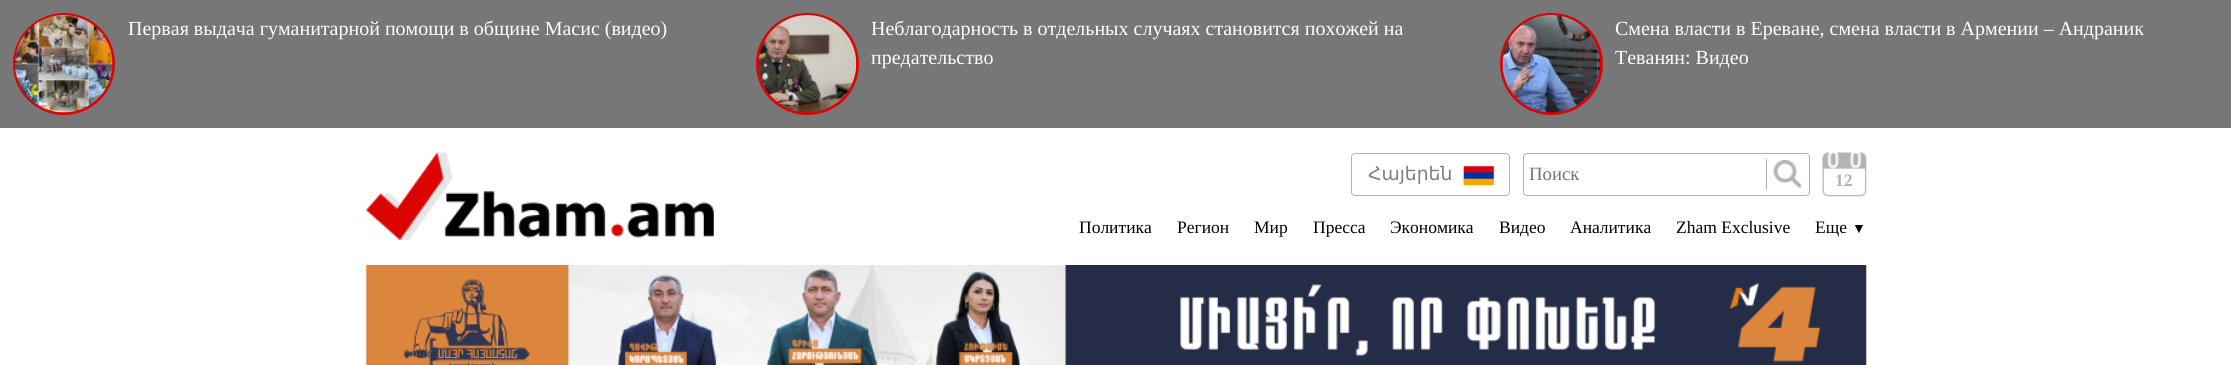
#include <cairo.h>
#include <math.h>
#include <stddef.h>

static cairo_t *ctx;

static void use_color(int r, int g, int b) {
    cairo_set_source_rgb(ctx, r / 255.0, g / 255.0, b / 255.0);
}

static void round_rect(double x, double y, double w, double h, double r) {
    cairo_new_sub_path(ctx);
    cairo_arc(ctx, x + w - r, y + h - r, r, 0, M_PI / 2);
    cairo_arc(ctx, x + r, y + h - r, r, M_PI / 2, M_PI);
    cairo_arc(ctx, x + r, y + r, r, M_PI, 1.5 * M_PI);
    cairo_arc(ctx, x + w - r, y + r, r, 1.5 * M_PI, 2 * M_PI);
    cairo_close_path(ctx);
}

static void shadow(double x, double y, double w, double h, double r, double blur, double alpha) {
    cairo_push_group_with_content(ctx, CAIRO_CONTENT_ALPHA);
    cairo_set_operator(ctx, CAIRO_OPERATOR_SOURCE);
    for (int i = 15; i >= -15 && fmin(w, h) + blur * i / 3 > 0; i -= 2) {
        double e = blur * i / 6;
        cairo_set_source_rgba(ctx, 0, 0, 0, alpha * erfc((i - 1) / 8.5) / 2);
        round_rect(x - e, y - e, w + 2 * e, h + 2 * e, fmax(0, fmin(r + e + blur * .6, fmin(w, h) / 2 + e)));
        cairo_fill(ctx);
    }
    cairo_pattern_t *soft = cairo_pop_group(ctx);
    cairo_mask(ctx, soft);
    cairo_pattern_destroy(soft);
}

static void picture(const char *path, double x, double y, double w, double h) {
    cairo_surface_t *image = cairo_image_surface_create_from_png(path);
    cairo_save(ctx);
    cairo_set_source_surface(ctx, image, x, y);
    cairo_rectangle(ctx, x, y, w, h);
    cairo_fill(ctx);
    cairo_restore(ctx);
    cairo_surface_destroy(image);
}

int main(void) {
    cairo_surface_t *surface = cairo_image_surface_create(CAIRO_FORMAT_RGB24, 2231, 365);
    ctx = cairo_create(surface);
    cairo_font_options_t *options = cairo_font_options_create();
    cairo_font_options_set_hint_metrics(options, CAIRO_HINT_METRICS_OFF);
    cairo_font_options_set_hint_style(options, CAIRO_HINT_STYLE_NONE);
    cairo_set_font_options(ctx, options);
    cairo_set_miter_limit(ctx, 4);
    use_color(255, 255, 255);
    cairo_paint(ctx);
    use_color(119, 119, 119);
    cairo_rectangle(ctx, 0, 0, 2231, 128);
    cairo_fill(ctx);
    cairo_arc(ctx, 64, 64, 49.5, 0, 2 * M_PI);
    use_color(220, 3, 3);
    cairo_set_line_width(ctx, 3);
    cairo_stroke(ctx);
    picture("img1.png", 15, 15, 98, 98);
    cairo_select_font_face(ctx, "Liberation Serif", CAIRO_FONT_SLANT_NORMAL, CAIRO_FONT_WEIGHT_NORMAL);
    cairo_set_font_size(ctx, 20);
    use_color(255, 255, 255);
    cairo_move_to(ctx, 128, 35);
    cairo_show_text(ctx, "Первая выдача гуманитарной помощи в общине Масис (видео)");
    round_rect(757.5, 14.5, 100, 99, 49.5);
    use_color(220, 3, 3);
    cairo_stroke(ctx);
    picture("img2.png", 758, 15, 99, 98);
    use_color(255, 255, 255);
    cairo_move_to(ctx, 871, 35);
    cairo_show_text(ctx, "Неблагодарность в отдельных случаях становится похожей на");
    cairo_move_to(ctx, 871, 64);
    cairo_show_text(ctx, "предательство");
    round_rect(1501.5, 14.5, 100, 99, 49.5);
    use_color(220, 3, 3);
    cairo_stroke(ctx);
    picture("img3.png", 1502, 15, 98, 98);
    use_color(255, 255, 255);
    cairo_move_to(ctx, 1615, 35);
    cairo_show_text(ctx, "Смена власти в Ереване, смена власти в Армении – Андраник");
    cairo_move_to(ctx, 1615, 64);
    cairo_show_text(ctx, "Теванян: Видео");
    picture("img4.png", 366, 152, 348, 88);
    round_rect(1351.5, 153.5, 158, 42, 3.5);
    use_color(179, 179, 179);
    cairo_set_line_width(ctx, 1);
    cairo_stroke(ctx);
    cairo_select_font_face(ctx, "DejaVu Sans", CAIRO_FONT_SLANT_NORMAL, CAIRO_FONT_WEIGHT_NORMAL);
    cairo_set_font_size(ctx, 18.75);
    use_color(128, 128, 128);
    cairo_move_to(ctx, 1368, 180);
    cairo_show_text(ctx, "Հայերեն");
    use_color(192, 192, 192);
    shadow(1465, 168, 28, 16, 0, 2, 1);
    picture("img5.png", 1463, 166, 31, 19);
    round_rect(1523.5, 153.5, 286, 42, 3.5);
    use_color(179, 179, 179);
    cairo_stroke(ctx);
    cairo_rectangle(ctx, 1766, 159, 1, 31);
    cairo_fill(ctx);
    cairo_select_font_face(ctx, "Liberation Serif", CAIRO_FONT_SLANT_NORMAL, CAIRO_FONT_WEIGHT_NORMAL);
    use_color(117, 117, 117);
    cairo_move_to(ctx, 1529, 180);
    cairo_show_text(ctx, "Поиск");
    picture("img6.png", 1773, 160, 29, 28);
    picture("img7.png", 1822, 152, 45, 45);
    cairo_select_font_face(ctx, "Liberation Serif", CAIRO_FONT_SLANT_NORMAL, CAIRO_FONT_WEIGHT_BOLD);
    cairo_set_font_size(ctx, 17.5);
    use_color(179, 179, 179);
    cairo_move_to(ctx, 1835, 186);
    cairo_show_text(ctx, "12");
    cairo_select_font_face(ctx, "Liberation Serif", CAIRO_FONT_SLANT_NORMAL, CAIRO_FONT_WEIGHT_NORMAL);
    use_color(0, 0, 0);
    cairo_move_to(ctx, 1079, 233);
    cairo_show_text(ctx, "Политика");
    cairo_move_to(ctx, 1177, 233);
    cairo_show_text(ctx, "Регион");
    cairo_move_to(ctx, 1254, 233);
    cairo_show_text(ctx, "Мир");
    cairo_move_to(ctx, 1313, 233);
    cairo_show_text(ctx, "Пресса");
    cairo_move_to(ctx, 1390, 233);
    cairo_show_text(ctx, "Экономика");
    cairo_move_to(ctx, 1499, 233);
    cairo_show_text(ctx, "Видео");
    cairo_move_to(ctx, 1570, 233);
    cairo_show_text(ctx, "Аналитика");
    cairo_move_to(ctx, 1676, 233);
    cairo_show_text(ctx, "Zham Exclusive");
    cairo_move_to(ctx, 1815, 233);
    cairo_show_text(ctx, "Еще");
    cairo_set_font_size(ctx, 14);
    cairo_move_to(ctx, 1852, 233);
    cairo_show_text(ctx, "▼");
    picture("img8.png", 366, 265, 1501, 100);
    cairo_surface_write_to_png(surface, "result.png");
    cairo_font_options_destroy(options);
    cairo_destroy(ctx);
    cairo_surface_destroy(surface);
    return 0;
}
